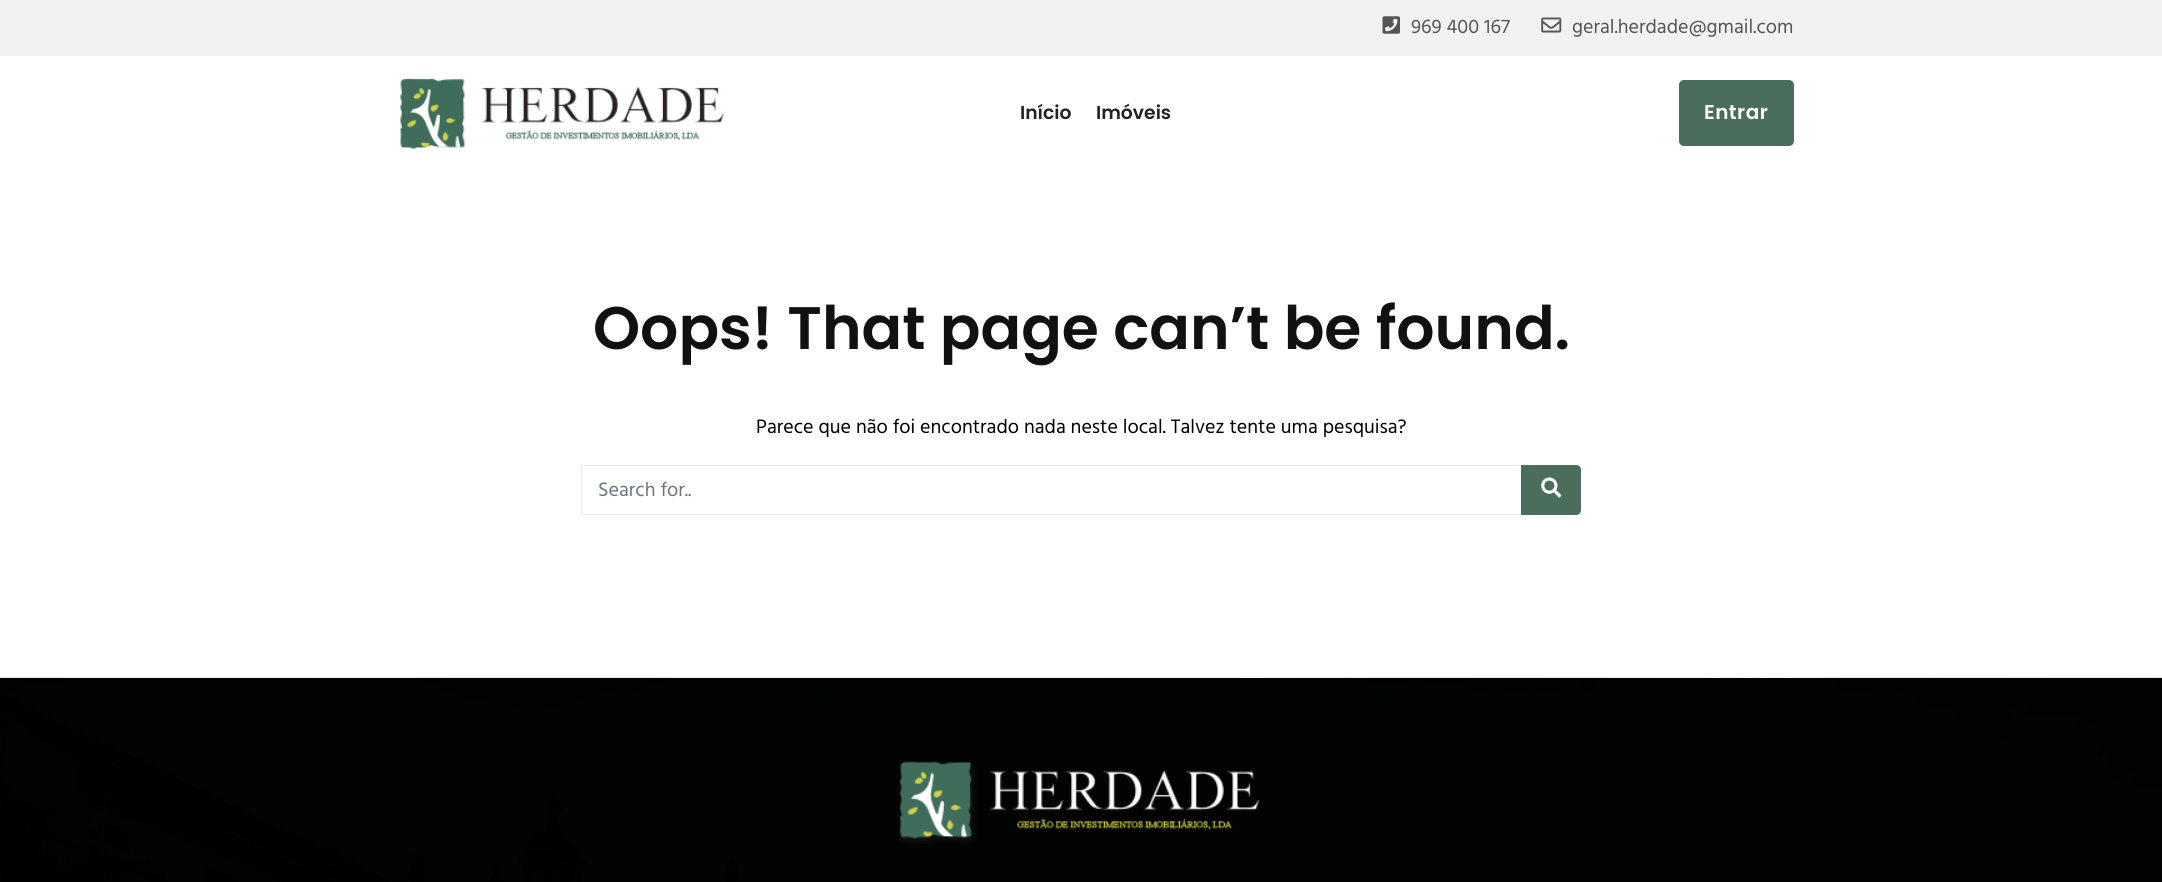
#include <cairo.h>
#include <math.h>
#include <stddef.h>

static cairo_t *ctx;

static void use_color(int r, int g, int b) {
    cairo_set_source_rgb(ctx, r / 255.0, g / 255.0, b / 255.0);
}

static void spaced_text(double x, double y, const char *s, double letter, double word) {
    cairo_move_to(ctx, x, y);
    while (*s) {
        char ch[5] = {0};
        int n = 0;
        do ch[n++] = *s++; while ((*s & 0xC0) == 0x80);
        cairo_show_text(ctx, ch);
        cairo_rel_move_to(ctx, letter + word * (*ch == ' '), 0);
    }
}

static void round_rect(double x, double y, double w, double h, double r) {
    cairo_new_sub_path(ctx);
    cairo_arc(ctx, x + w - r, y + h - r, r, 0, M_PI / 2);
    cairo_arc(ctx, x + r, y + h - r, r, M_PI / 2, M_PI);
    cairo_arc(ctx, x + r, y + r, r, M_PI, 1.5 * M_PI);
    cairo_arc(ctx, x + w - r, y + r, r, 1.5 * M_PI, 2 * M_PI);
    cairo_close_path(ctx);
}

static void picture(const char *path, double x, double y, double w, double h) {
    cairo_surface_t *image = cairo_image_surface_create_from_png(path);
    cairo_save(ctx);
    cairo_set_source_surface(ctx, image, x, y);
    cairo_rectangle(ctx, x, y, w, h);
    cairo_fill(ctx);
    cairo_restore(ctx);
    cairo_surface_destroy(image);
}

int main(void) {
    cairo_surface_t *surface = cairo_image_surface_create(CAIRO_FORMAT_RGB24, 2162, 882);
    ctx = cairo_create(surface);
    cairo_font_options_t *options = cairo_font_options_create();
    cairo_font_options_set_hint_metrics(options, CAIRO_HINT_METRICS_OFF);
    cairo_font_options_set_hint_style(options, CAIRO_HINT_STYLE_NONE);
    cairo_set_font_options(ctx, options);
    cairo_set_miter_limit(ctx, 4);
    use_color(255, 255, 255);
    cairo_paint(ctx);
    use_color(242, 242, 242);
    cairo_rectangle(ctx, 0, 0, 2162, 56);
    cairo_fill(ctx);
    picture("img1.png", 1382, 16, 18, 18);
    cairo_select_font_face(ctx, "Hind", CAIRO_FONT_SLANT_NORMAL, CAIRO_FONT_WEIGHT_NORMAL);
    cairo_set_font_size(ctx, 20);
    use_color(85, 85, 85);
    cairo_move_to(ctx, 1411, 33);
    cairo_show_text(ctx, "969 400 167");
    picture("img2.png", 1541, 17, 21, 16);
    cairo_move_to(ctx, 1572, 33);
    cairo_show_text(ctx, "geral.herdade@gmail.com");
    picture("img3.png", 400, 78, 324, 71);
    cairo_select_font_face(ctx, "Poppins SemiBold", CAIRO_FONT_SLANT_NORMAL, CAIRO_FONT_WEIGHT_NORMAL);
    cairo_set_font_size(ctx, 18.75);
    use_color(34, 34, 34);
    cairo_move_to(ctx, 1020, 119);
    cairo_show_text(ctx, "Início");
    cairo_move_to(ctx, 1096, 119);
    cairo_show_text(ctx, "Imóveis");
    use_color(75, 110, 92);
    round_rect(1679, 80, 115, 66, 5);
    cairo_fill(ctx);
    cairo_set_font_size(ctx, 20);
    use_color(255, 255, 255);
    spaced_text(1704, 119, "Entrar", 0.5, 0);
    cairo_set_font_size(ctx, 60);
    use_color(17, 17, 17);
    cairo_move_to(ctx, 593, 349);
    cairo_show_text(ctx, "Oops! That page can’t be found.");
    cairo_select_font_face(ctx, "Hind", CAIRO_FONT_SLANT_NORMAL, CAIRO_FONT_WEIGHT_NORMAL);
    cairo_set_font_size(ctx, 20);
    use_color(0, 0, 0);
    cairo_move_to(ctx, 756, 433);
    cairo_show_text(ctx, "Parece que não foi encontrado nada neste local. Talvez tente uma pesquisa?");
    use_color(234, 234, 234);
    cairo_rectangle(ctx, 581, 465, 940, 1);
    cairo_fill(ctx);
    cairo_rectangle(ctx, 581, 514, 940, 1);
    cairo_fill(ctx);
    cairo_rectangle(ctx, 581, 465, 1, 50);
    cairo_fill(ctx);
    use_color(108, 117, 125);
    cairo_move_to(ctx, 598, 496);
    cairo_show_text(ctx, "Search for..");
    use_color(75, 110, 92);
    cairo_new_path(ctx);
    cairo_move_to(ctx, 1521, 465);
    cairo_line_to(ctx, 1576, 465);
    cairo_curve_to(ctx, 1579, 465, 1581, 467, 1581, 470);
    cairo_line_to(ctx, 1581, 510);
    cairo_curve_to(ctx, 1581, 513, 1579, 515, 1576, 515);
    cairo_line_to(ctx, 1521, 515);
    cairo_close_path(ctx);
    cairo_fill(ctx);
    picture("img4.png", 1541, 477, 21, 21);
    picture("img5.png", 0, 677, 2162, 205);
    picture("img6.png", 899, 761, 360, 83);
    cairo_surface_write_to_png(surface, "result.png");
    cairo_font_options_destroy(options);
    cairo_destroy(ctx);
    cairo_surface_destroy(surface);
    return 0;
}
